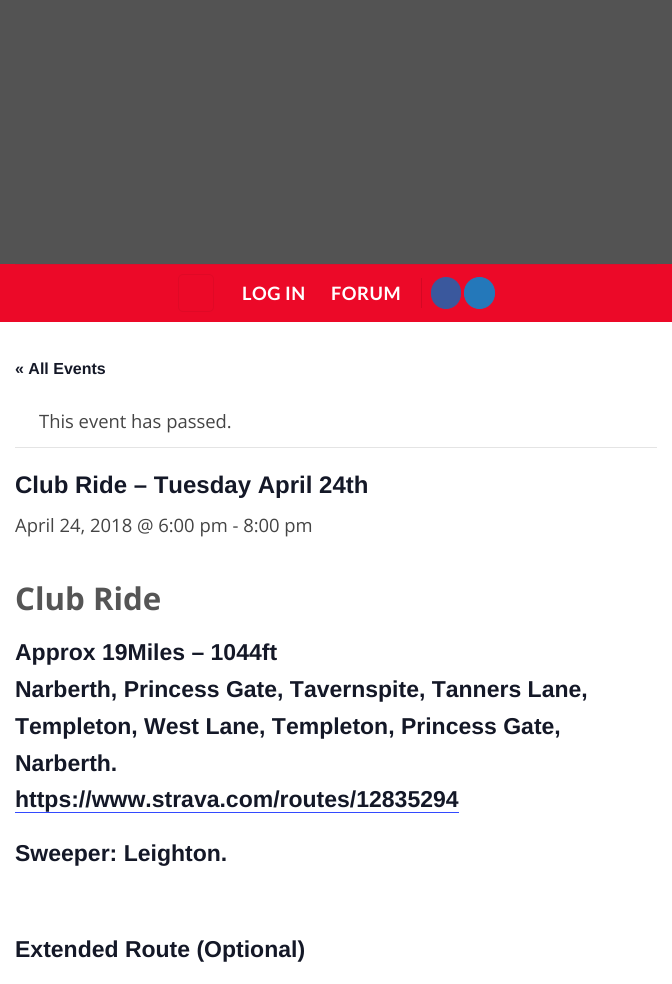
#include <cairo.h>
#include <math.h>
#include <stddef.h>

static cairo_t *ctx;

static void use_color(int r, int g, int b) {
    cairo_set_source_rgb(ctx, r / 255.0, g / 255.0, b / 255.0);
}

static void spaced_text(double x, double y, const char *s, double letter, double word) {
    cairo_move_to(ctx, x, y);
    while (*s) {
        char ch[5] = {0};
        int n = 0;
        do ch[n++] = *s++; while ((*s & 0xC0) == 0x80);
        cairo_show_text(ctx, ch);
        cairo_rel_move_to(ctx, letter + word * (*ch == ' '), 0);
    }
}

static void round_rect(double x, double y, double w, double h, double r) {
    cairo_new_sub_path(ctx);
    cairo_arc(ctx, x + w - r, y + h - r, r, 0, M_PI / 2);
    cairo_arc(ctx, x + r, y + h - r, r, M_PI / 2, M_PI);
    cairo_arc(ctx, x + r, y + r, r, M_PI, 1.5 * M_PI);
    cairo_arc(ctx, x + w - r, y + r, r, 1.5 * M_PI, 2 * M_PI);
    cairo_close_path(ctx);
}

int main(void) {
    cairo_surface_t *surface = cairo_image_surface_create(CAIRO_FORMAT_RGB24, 672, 984);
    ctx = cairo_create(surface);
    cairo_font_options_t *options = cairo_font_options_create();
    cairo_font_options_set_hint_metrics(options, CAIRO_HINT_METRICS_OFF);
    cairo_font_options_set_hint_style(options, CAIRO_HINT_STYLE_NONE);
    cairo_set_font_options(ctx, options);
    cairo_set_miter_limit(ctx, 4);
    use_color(255, 255, 255);
    cairo_paint(ctx);
    use_color(83, 83, 83);
    cairo_rectangle(ctx, 0, 0, 672, 264);
    cairo_fill(ctx);
    use_color(236, 9, 40);
    cairo_rectangle(ctx, 0, 264, 672, 58);
    cairo_fill(ctx);
    use_color(219, 15, 43);
    cairo_rectangle(ctx, 15, 264, 642, 1);
    cairo_fill(ctx);
    round_rect(178.5, 274.5, 35, 37, 4.5);
    use_color(224, 9, 38);
    cairo_set_line_width(ctx, 1);
    cairo_stroke(ctx);
    cairo_select_font_face(ctx, "Lato", CAIRO_FONT_SLANT_NORMAL, CAIRO_FONT_WEIGHT_BOLD);
    cairo_set_font_size(ctx, 18.4);
    use_color(255, 255, 255);
    spaced_text(242, 300, "LOG IN", 0.5, 0);
    spaced_text(331, 300, "FORUM", 0.5, 0);
    use_color(212, 8, 36);
    cairo_rectangle(ctx, 421, 278, 1, 30);
    cairo_fill(ctx);
    use_color(58, 88, 157);
    round_rect(431.5, 277.5, 29, 31, 14.5);
    cairo_fill_preserve(ctx);
    cairo_stroke(ctx);
    use_color(36, 120, 186);
    round_rect(464.5, 277.5, 30, 31, 15);
    cairo_fill_preserve(ctx);
    cairo_stroke(ctx);
    cairo_select_font_face(ctx, "Liberation Sans", CAIRO_FONT_SLANT_NORMAL, CAIRO_FONT_WEIGHT_BOLD);
    cairo_set_font_size(ctx, 16);
    use_color(20, 24, 39);
    cairo_move_to(ctx, 15, 374);
    cairo_show_text(ctx, "« All Events");
    use_color(228, 228, 228);
    cairo_rectangle(ctx, 15, 447, 642, 1);
    cairo_fill(ctx);
    cairo_select_font_face(ctx, "Open Sans", CAIRO_FONT_SLANT_NORMAL, CAIRO_FONT_WEIGHT_NORMAL);
    cairo_set_font_size(ctx, 18.4);
    use_color(68, 68, 68);
    cairo_move_to(ctx, 39, 428);
    cairo_show_text(ctx, "This event has passed.");
    cairo_select_font_face(ctx, "Liberation Sans", CAIRO_FONT_SLANT_NORMAL, CAIRO_FONT_WEIGHT_BOLD);
    cairo_set_font_size(ctx, 24);
    use_color(20, 24, 39);
    cairo_move_to(ctx, 15, 493);
    cairo_show_text(ctx, "Club Ride – Tuesday April 24th");
    cairo_select_font_face(ctx, "Open Sans", CAIRO_FONT_SLANT_NORMAL, CAIRO_FONT_WEIGHT_NORMAL);
    cairo_set_font_size(ctx, 18.4);
    use_color(68, 68, 68);
    cairo_move_to(ctx, 15, 532);
    cairo_show_text(ctx, "April 24, 2018 @ 6:00 pm - 8:00 pm");
    cairo_select_font_face(ctx, "Open Sans", CAIRO_FONT_SLANT_NORMAL, CAIRO_FONT_WEIGHT_BOLD);
    cairo_set_font_size(ctx, 31.25);
    use_color(85, 85, 85);
    cairo_move_to(ctx, 15, 610);
    cairo_show_text(ctx, "Club Ride");
    cairo_select_font_face(ctx, "Liberation Sans", CAIRO_FONT_SLANT_NORMAL, CAIRO_FONT_WEIGHT_BOLD);
    cairo_set_font_size(ctx, 23);
    use_color(20, 24, 39);
    cairo_move_to(ctx, 15, 660);
    cairo_show_text(ctx, "Approx 19Miles – 1044ft");
    cairo_move_to(ctx, 15, 697);
    cairo_show_text(ctx, "Narberth, Princess Gate, Tavernspite, Tanners Lane,");
    cairo_move_to(ctx, 15, 734);
    cairo_show_text(ctx, "Templeton, West Lane, Templeton, Princess Gate,");
    cairo_move_to(ctx, 15, 771);
    cairo_show_text(ctx, "Narberth.");
    cairo_move_to(ctx, 15, 807);
    cairo_show_text(ctx, "https://www.strava.com/routes/12835294");
    use_color(51, 74, 255);
    cairo_rectangle(ctx, 15, 812, 444, 1);
    cairo_fill(ctx);
    use_color(20, 24, 39);
    cairo_move_to(ctx, 15, 861);
    cairo_show_text(ctx, "Sweeper: Leighton.");
    cairo_move_to(ctx, 15, 957);
    cairo_show_text(ctx, "Extended Route (Optional)");
    cairo_surface_write_to_png(surface, "result.png");
    cairo_font_options_destroy(options);
    cairo_destroy(ctx);
    cairo_surface_destroy(surface);
    return 0;
}
